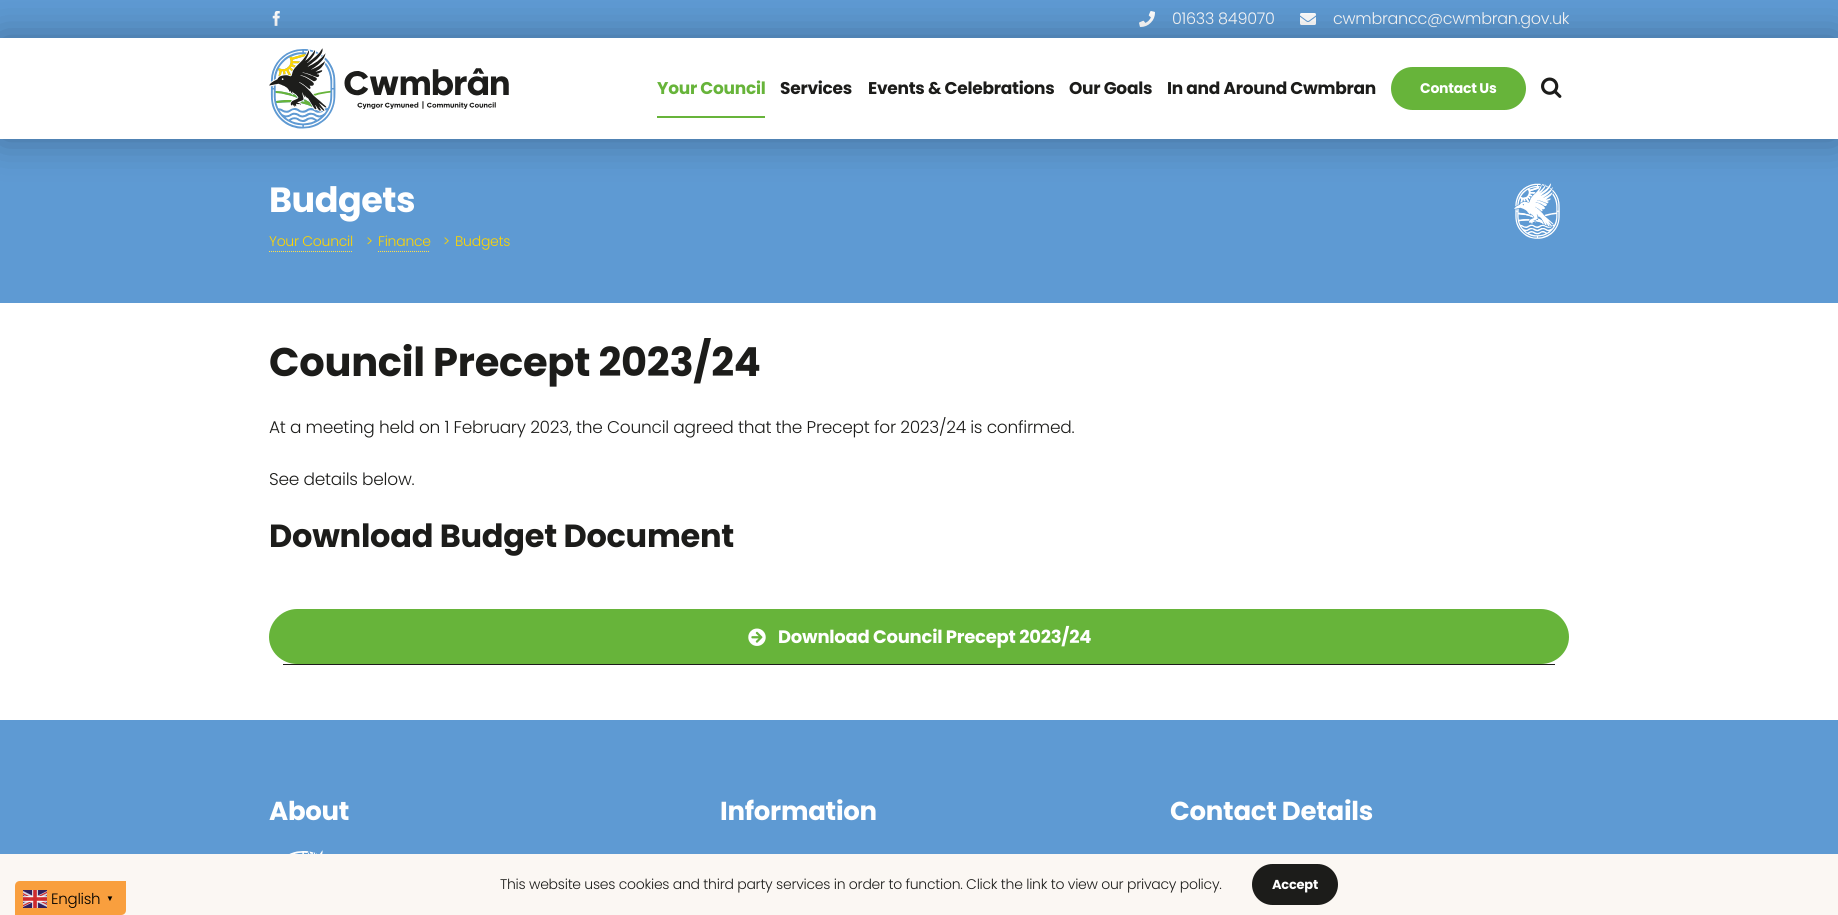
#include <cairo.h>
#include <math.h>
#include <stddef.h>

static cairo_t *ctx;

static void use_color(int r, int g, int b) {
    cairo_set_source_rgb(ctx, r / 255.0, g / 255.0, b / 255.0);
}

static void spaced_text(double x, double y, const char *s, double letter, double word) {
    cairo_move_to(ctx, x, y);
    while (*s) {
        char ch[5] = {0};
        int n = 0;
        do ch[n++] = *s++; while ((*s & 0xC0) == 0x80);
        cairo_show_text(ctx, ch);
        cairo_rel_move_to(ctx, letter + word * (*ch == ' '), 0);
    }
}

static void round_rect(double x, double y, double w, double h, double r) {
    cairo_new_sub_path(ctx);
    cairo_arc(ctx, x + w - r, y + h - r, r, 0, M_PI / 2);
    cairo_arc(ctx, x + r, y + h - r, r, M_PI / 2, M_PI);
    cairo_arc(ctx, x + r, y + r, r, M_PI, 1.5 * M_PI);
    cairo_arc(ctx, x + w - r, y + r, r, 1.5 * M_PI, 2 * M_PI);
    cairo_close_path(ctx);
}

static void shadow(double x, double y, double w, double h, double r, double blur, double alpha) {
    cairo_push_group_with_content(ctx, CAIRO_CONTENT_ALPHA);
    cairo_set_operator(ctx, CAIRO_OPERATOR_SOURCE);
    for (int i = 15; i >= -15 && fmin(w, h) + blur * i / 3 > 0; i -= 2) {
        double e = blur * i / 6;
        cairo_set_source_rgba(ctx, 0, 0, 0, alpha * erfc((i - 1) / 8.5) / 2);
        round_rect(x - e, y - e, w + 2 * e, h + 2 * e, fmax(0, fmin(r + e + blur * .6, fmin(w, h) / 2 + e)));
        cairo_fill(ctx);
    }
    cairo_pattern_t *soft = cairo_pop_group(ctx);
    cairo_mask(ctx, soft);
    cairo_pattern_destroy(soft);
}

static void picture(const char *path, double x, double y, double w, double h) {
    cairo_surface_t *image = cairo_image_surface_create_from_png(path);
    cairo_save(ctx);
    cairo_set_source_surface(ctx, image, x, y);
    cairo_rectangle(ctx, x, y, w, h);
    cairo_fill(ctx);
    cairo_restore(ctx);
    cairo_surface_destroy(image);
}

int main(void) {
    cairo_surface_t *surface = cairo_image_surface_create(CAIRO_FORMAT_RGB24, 1838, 915);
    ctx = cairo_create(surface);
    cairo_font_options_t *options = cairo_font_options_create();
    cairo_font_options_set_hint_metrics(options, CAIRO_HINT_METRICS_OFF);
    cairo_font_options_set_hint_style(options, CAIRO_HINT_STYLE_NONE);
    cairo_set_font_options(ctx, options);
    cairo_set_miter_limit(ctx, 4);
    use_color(255, 255, 255);
    cairo_paint(ctx);
    use_color(94, 154, 211);
    cairo_rectangle(ctx, 0, 0, 1838, 38);
    cairo_fill(ctx);
    picture("img1.png", 272, 11, 8, 15);
    picture("img2.png", 1139, 11, 16, 16);
    cairo_select_font_face(ctx, "Poppins Light", CAIRO_FONT_SLANT_NORMAL, CAIRO_FONT_WEIGHT_NORMAL);
    cairo_set_font_size(ctx, 16);
    use_color(255, 255, 255);
    spaced_text(1172, 24, "01633 849070", -0.26, 0);
    picture("img3.png", 1300, 13, 16, 12);
    spaced_text(1333, 24, "cwmbrancc@cwmbran.gov.uk", -0.26, 0);
    use_color(94, 154, 211);
    cairo_rectangle(ctx, 0, 139, 1838, 164);
    cairo_fill(ctx);
    picture("img6.png", 1514, 183, 46, 56);
    cairo_save(ctx);
    cairo_set_fill_rule(ctx, CAIRO_FILL_RULE_EVEN_ODD);
    cairo_new_path(ctx);
    cairo_move_to(ctx, 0, 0);
    cairo_line_to(ctx, 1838, 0);
    cairo_line_to(ctx, 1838, 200);
    cairo_line_to(ctx, 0, 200);
    cairo_close_path(ctx);
    cairo_move_to(ctx, 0, 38);
    cairo_line_to(ctx, 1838, 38);
    cairo_line_to(ctx, 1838, 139);
    cairo_line_to(ctx, 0, 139);
    cairo_close_path(ctx);
    cairo_clip(ctx);
    use_color(0, 0, 0);
    shadow(0, 38, 1838, 101, 0, 20, 0.3);
    cairo_restore(ctx);
    picture("img4.png", 269, 48, 240, 81);
    cairo_select_font_face(ctx, "Poppins", CAIRO_FONT_SLANT_NORMAL, CAIRO_FONT_WEIGHT_BOLD);
    cairo_set_font_size(ctx, 17);
    use_color(103, 180, 58);
    spaced_text(657, 94, "Your Council", -0.26, 0);
    cairo_rectangle(ctx, 657, 116, 108, 2);
    cairo_fill(ctx);
    use_color(28, 28, 26);
    spaced_text(780, 94, "Services", -0.26, 0);
    spaced_text(868, 94, "Events & Celebrations", -0.26, 0);
    spaced_text(1069, 94, "Our Goals", -0.26, 0);
    spaced_text(1167, 94, "In and Around Cwmbran", -0.26, 0);
    use_color(103, 180, 58);
    round_rect(1391, 67, 135, 43, 21.5);
    cairo_fill(ctx);
    cairo_set_font_size(ctx, 14);
    use_color(255, 255, 255);
    spaced_text(1420, 93, "Contact Us", -0.25, 0);
    picture("img5.png", 1541, 77, 21, 21);
    cairo_set_font_size(ctx, 35);
    spaced_text(269, 212, "Budgets", -0.5, 0);
    cairo_select_font_face(ctx, "Poppins Light", CAIRO_FONT_SLANT_NORMAL, CAIRO_FONT_WEIGHT_NORMAL);
    cairo_set_font_size(ctx, 14);
    use_color(255, 213, 0);
    spaced_text(269, 246, "Your Council", -0.26, 0);
    cairo_new_path(ctx);
    cairo_move_to(ctx, 269, 251.5);
    cairo_line_to(ctx, 353, 251.5);
    use_color(255, 224, 71);
    cairo_set_line_width(ctx, 1);
    cairo_set_dash(ctx, (double[]){1, 1}, 2, 0);
    cairo_stroke(ctx);
    use_color(255, 213, 0);
    spaced_text(366, 246, ">", -0.26, 0);
    spaced_text(378, 246, "Finance", -0.26, 0);
    cairo_new_path(ctx);
    cairo_move_to(ctx, 378, 251.5);
    cairo_line_to(ctx, 430, 251.5);
    use_color(255, 224, 71);
    cairo_stroke(ctx);
    use_color(255, 213, 0);
    spaced_text(443, 246, ">", -0.26, 0);
    spaced_text(455, 246, "Budgets", -0.26, 0);
    cairo_select_font_face(ctx, "Poppins", CAIRO_FONT_SLANT_NORMAL, CAIRO_FONT_WEIGHT_BOLD);
    cairo_set_font_size(ctx, 40);
    use_color(28, 28, 26);
    spaced_text(269, 376, "Council Precept 2023/24", -0.26, 0);
    cairo_select_font_face(ctx, "Poppins Light", CAIRO_FONT_SLANT_NORMAL, CAIRO_FONT_WEIGHT_NORMAL);
    cairo_set_font_size(ctx, 17);
    spaced_text(269, 433, "At a meeting held on 1 February 2023, the Council agreed that the Precept for 2023/24 is confirmed.", -0.26, 0);
    spaced_text(269, 485, "See details below.", -0.26, 0);
    cairo_select_font_face(ctx, "Poppins", CAIRO_FONT_SLANT_NORMAL, CAIRO_FONT_WEIGHT_BOLD);
    cairo_set_font_size(ctx, 32);
    spaced_text(269, 547, "Download Budget Document", -0.26, 0);
    use_color(103, 180, 58);
    cairo_new_path(ctx);
    cairo_move_to(ctx, 297, 609);
    cairo_line_to(ctx, 1541, 609);
    cairo_curve_to(ctx, 1556, 609, 1569, 622, 1569, 637);
    cairo_curve_to(ctx, 1569, 652, 1556, 664, 1541, 664);
    cairo_line_to(ctx, 297, 664);
    cairo_curve_to(ctx, 282, 664, 269, 652, 269, 637);
    cairo_curve_to(ctx, 269, 622, 282, 609, 297, 609);
    cairo_close_path(ctx);
    cairo_fill(ctx);
    use_color(28, 28, 26);
    cairo_rectangle(ctx, 283, 664, 1272, 1);
    cairo_fill(ctx);
    picture("img7.png", 748, 628, 18, 18);
    cairo_set_font_size(ctx, 18);
    use_color(255, 255, 255);
    spaced_text(778, 643, "Download Council Precept 2023/24", -0.25, 0);
    use_color(94, 154, 211);
    cairo_rectangle(ctx, 0, 720, 1838, 134);
    cairo_fill(ctx);
    cairo_set_font_size(ctx, 26);
    use_color(255, 255, 255);
    spaced_text(269, 820, "About", -0.26, 0);
    picture("img8.png", 289, 850, 34, 4);
    spaced_text(720, 820, "Information", -0.26, 0);
    spaced_text(1170, 820, "Contact Details", -0.26, 0);
    use_color(251, 247, 243);
    cairo_rectangle(ctx, 0, 854, 1838, 61);
    cairo_fill(ctx);
    cairo_select_font_face(ctx, "Poppins Light", CAIRO_FONT_SLANT_NORMAL, CAIRO_FONT_WEIGHT_NORMAL);
    cairo_set_font_size(ctx, 14);
    use_color(28, 28, 26);
    spaced_text(500, 889, "This website uses cookies and third party services in order to function. Click the link to view our privacy policy.", -0.26, 0);
    round_rect(1252, 864, 86, 41, 20.5);
    cairo_fill(ctx);
    cairo_select_font_face(ctx, "Poppins", CAIRO_FONT_SLANT_NORMAL, CAIRO_FONT_WEIGHT_BOLD);
    cairo_set_font_size(ctx, 13);
    use_color(255, 255, 255);
    spaced_text(1272, 889, "Accept", -0.25, 0);
    use_color(249, 159, 62);
    cairo_new_path(ctx);
    cairo_move_to(ctx, 20, 881);
    cairo_line_to(ctx, 126, 881);
    cairo_line_to(ctx, 126, 910);
    cairo_curve_to(ctx, 126, 913, 124, 915, 121, 915);
    cairo_line_to(ctx, 15, 915);
    cairo_line_to(ctx, 15, 886);
    cairo_curve_to(ctx, 15, 883, 17, 881, 20, 881);
    cairo_close_path(ctx);
    cairo_fill(ctx);
    picture("img9.png", 23, 890, 24, 18);
    cairo_select_font_face(ctx, "Poppins Light", CAIRO_FONT_SLANT_NORMAL, CAIRO_FONT_WEIGHT_NORMAL);
    cairo_set_font_size(ctx, 15);
    use_color(0, 0, 0);
    spaced_text(51, 904, "English", -0.26, 0);
    cairo_select_font_face(ctx, "Liberation Sans", CAIRO_FONT_SLANT_NORMAL, CAIRO_FONT_WEIGHT_BOLD);
    cairo_set_font_size(ctx, 8);
    spaced_text(106, 901, "▼", -0.26, 0);
    cairo_surface_write_to_png(surface, "result.png");
    cairo_font_options_destroy(options);
    cairo_destroy(ctx);
    cairo_surface_destroy(surface);
    return 0;
}
